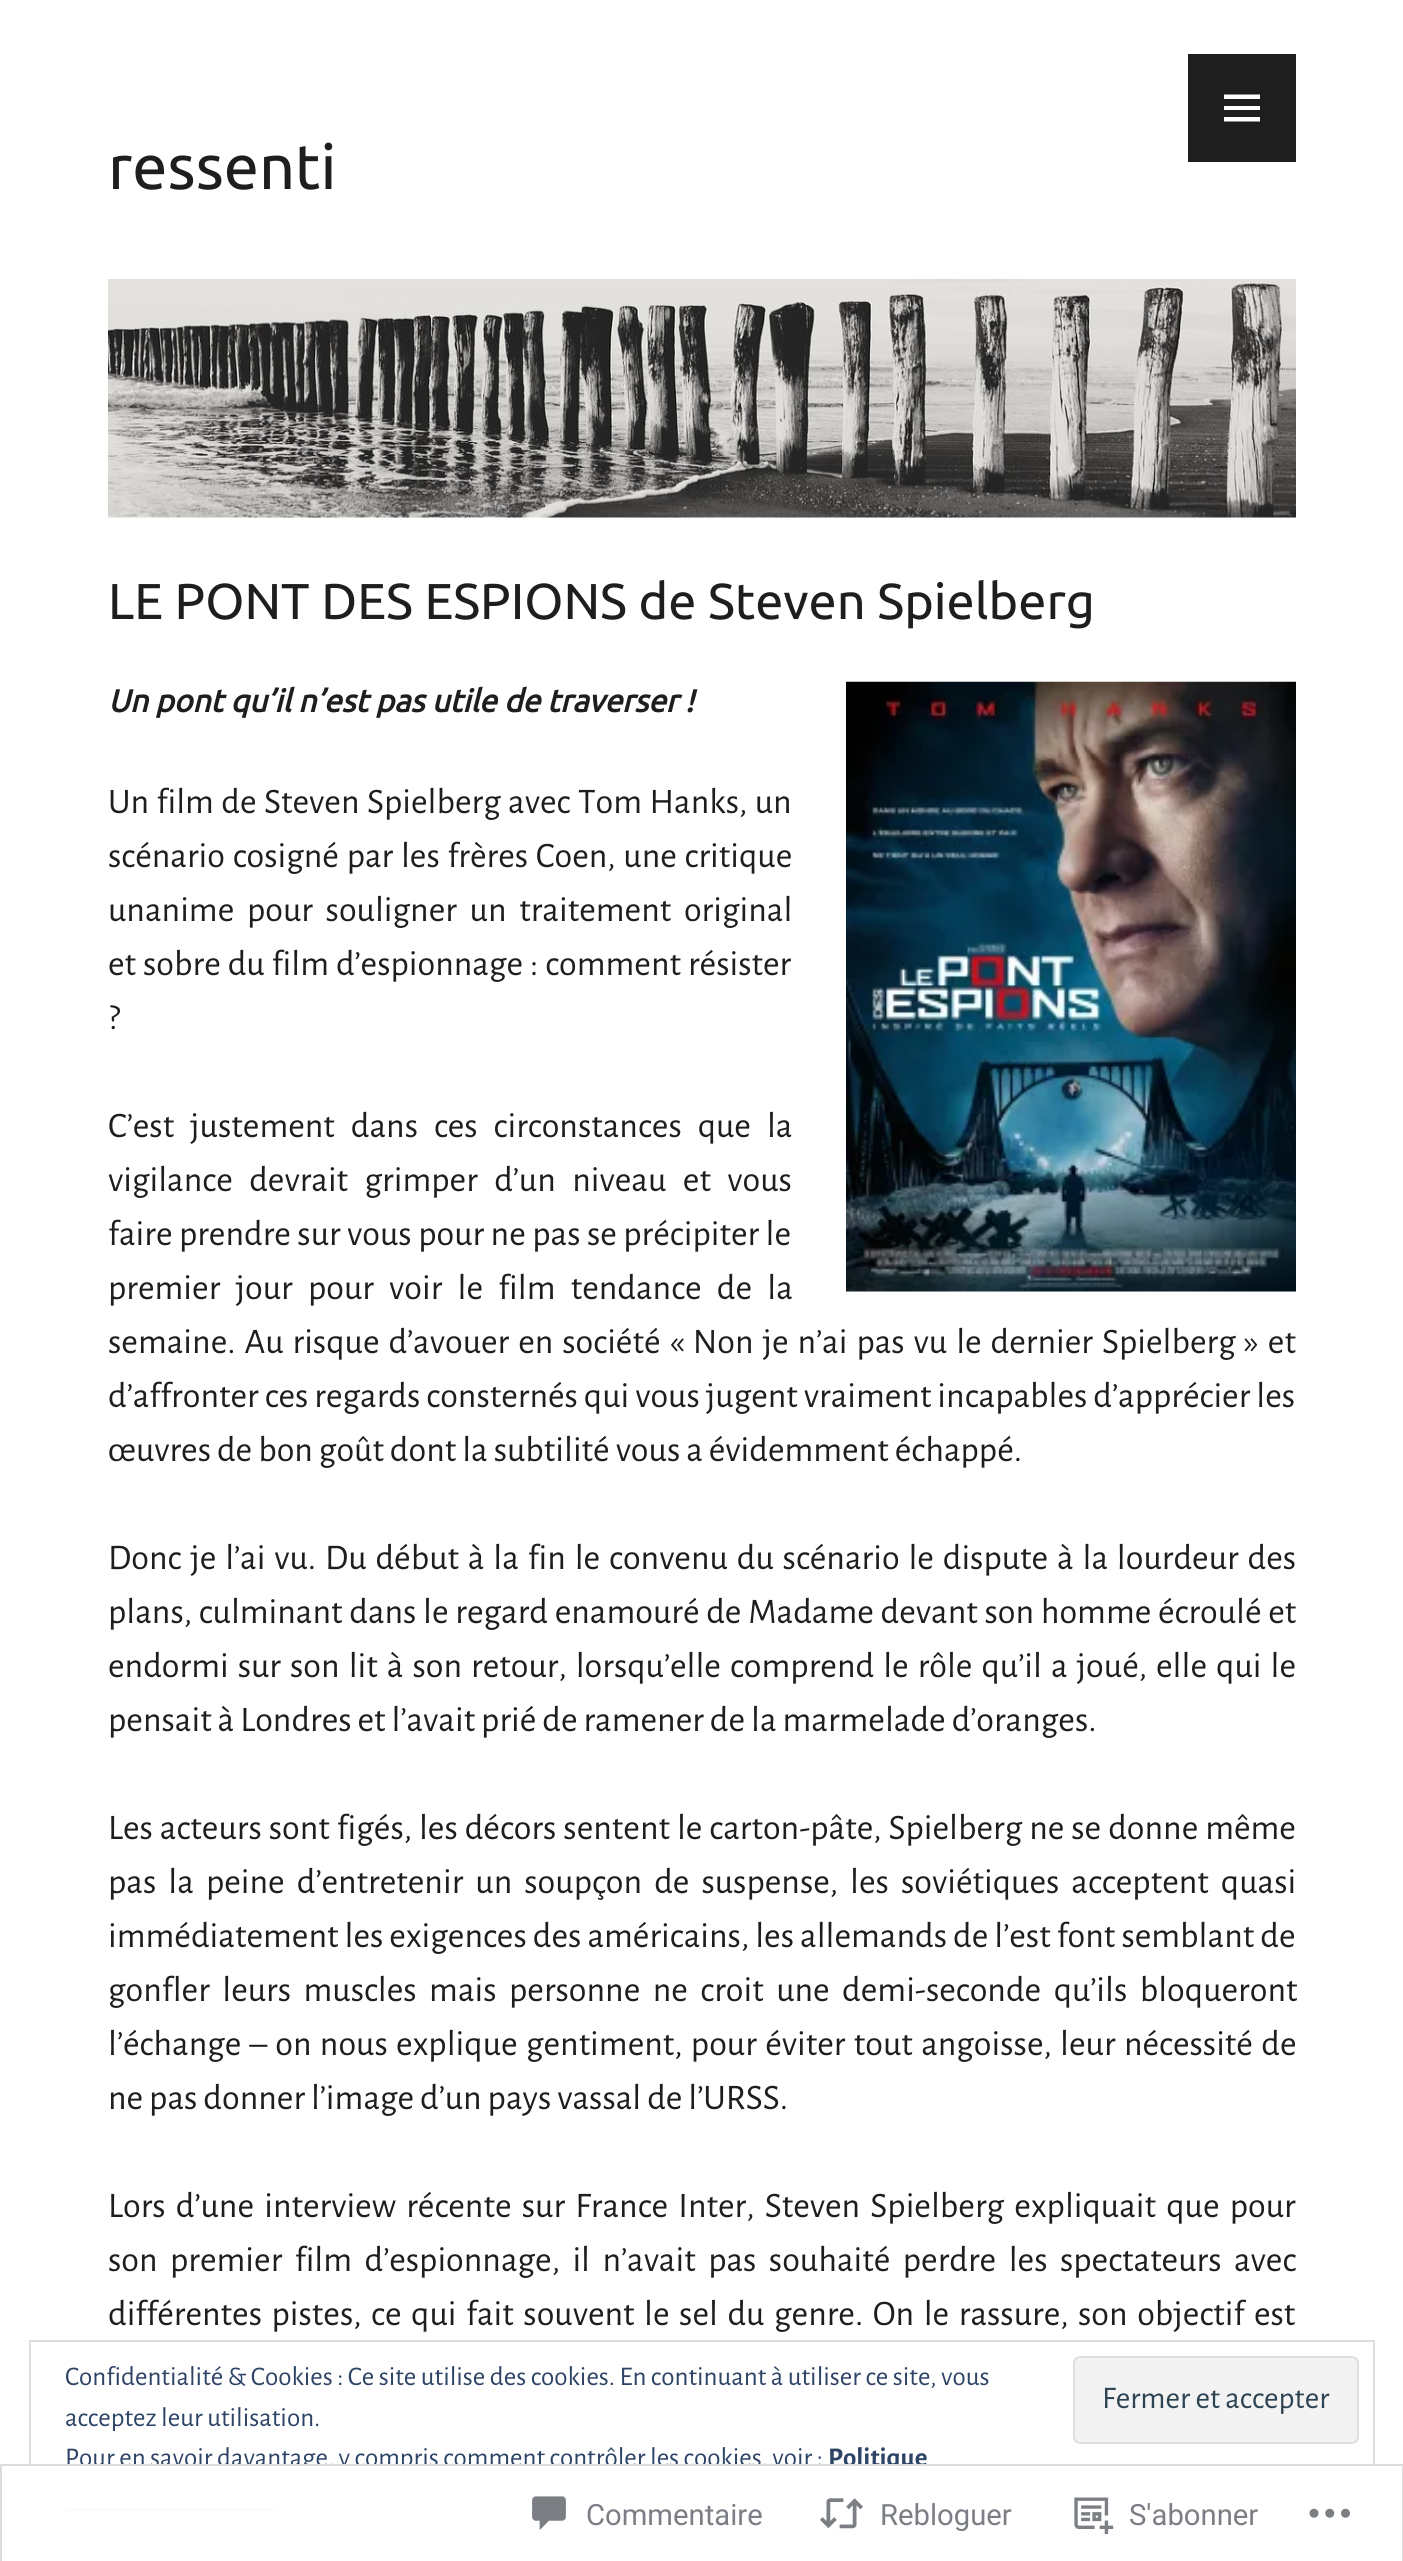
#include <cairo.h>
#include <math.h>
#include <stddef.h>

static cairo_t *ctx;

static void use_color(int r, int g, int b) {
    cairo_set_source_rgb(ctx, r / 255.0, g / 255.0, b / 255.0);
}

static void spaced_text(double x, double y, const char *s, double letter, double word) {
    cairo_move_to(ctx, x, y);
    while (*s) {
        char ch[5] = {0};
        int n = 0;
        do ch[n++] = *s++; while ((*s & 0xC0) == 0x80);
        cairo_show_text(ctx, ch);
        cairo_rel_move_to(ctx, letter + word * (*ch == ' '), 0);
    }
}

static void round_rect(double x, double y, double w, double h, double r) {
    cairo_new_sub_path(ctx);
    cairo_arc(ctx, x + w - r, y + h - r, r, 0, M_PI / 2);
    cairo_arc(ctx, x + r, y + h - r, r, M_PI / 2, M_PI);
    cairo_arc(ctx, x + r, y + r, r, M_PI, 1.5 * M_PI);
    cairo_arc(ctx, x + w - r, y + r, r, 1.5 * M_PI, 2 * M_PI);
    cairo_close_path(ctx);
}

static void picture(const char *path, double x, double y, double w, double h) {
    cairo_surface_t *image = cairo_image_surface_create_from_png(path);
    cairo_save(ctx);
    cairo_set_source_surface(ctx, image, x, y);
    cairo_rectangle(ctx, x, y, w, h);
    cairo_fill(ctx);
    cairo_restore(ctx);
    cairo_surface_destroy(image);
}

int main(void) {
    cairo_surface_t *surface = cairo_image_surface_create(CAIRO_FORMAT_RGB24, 1403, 2561);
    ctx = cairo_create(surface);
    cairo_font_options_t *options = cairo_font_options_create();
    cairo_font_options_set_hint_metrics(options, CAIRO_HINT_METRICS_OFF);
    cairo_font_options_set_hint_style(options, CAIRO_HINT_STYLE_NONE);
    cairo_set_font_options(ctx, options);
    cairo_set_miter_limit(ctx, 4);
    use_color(255, 255, 255);
    cairo_paint(ctx);
    cairo_select_font_face(ctx, "Ubuntu", CAIRO_FONT_SLANT_NORMAL, CAIRO_FONT_WEIGHT_NORMAL);
    cairo_set_font_size(ctx, 63);
    use_color(30, 30, 30);
    cairo_move_to(ctx, 108, 189);
    cairo_show_text(ctx, "ressenti");
    cairo_rectangle(ctx, 1188, 54, 108, 108);
    cairo_fill(ctx);
    use_color(255, 255, 255);
    cairo_new_path(ctx);
    cairo_move_to(ctx, 1224, 121.5);
    cairo_line_to(ctx, 1224, 117);
    cairo_line_to(ctx, 1260, 117);
    cairo_line_to(ctx, 1260, 121.5);
    cairo_close_path(ctx);
    cairo_move_to(ctx, 1224, 94.5);
    cairo_line_to(ctx, 1260, 94.5);
    cairo_line_to(ctx, 1260, 99);
    cairo_line_to(ctx, 1224, 99);
    cairo_close_path(ctx);
    cairo_move_to(ctx, 1224, 110);
    cairo_line_to(ctx, 1224, 106);
    cairo_line_to(ctx, 1260, 106);
    cairo_line_to(ctx, 1260, 110);
    cairo_close_path(ctx);
    cairo_fill(ctx);
    picture("img1.png", 108, 279, 1188, 239);
    cairo_set_font_size(ctx, 50.4);
    use_color(30, 30, 30);
    cairo_move_to(ctx, 108, 619);
    cairo_show_text(ctx, "LE PONT DES ESPIONS de Steven Spielberg");
    cairo_select_font_face(ctx, "Ubuntu", CAIRO_FONT_SLANT_ITALIC, CAIRO_FONT_WEIGHT_BOLD);
    cairo_set_font_size(ctx, 31.5);
    cairo_move_to(ctx, 108, 712);
    cairo_show_text(ctx, "Un pont qu’il n’est pas utile de traverser !");
    picture("img2.png", 846, 681, 450, 611);
    cairo_select_font_face(ctx, "Alegreya Sans", CAIRO_FONT_SLANT_NORMAL, CAIRO_FONT_WEIGHT_NORMAL);
    cairo_set_font_size(ctx, 36);
    spaced_text(108, 813, "Un film de Steven Spielberg avec Tom Hanks, un", 0, 1.5);
    spaced_text(108, 867, "scénario cosigné par les frères Coen, une critique", 0, 1.75);
    spaced_text(108, 921, "unanime pour souligner un traitement original", 0, 6.75);
    spaced_text(108, 975, "et sobre du film d’espionnage : comment résister", 0, 1);
    cairo_move_to(ctx, 108, 1029);
    cairo_show_text(ctx, "?");
    spaced_text(108, 1137, "C’est justement dans ces circonstances que la", 0, 10);
    spaced_text(108, 1191, "vigilance devrait grimper d’un niveau et vous", 0, 10.5);
    spaced_text(108, 1245, "faire prendre sur vous pour ne pas se précipiter le", 0, 0.5);
    spaced_text(108, 1299, "premier jour pour voir le film tendance de la", 0, 9.25);
    spaced_text(108, 1353, "semaine. Au risque d’avouer en société « Non je n’ai pas vu le dernier Spielberg » et", 0, 3);
    cairo_move_to(ctx, 108, 1407);
    cairo_show_text(ctx, "d’affronter ces regards consternés qui vous jugent vraiment incapables d’apprécier les");
    cairo_move_to(ctx, 108, 1461);
    cairo_show_text(ctx, "œuvres de bon goût dont la subtilité vous a évidemment échappé.");
    spaced_text(108, 1569, "Donc je l’ai vu. Du début à la fin le convenu du scénario le dispute à la lourdeur des", 0, 2.9);
    spaced_text(108, 1623, "plans, culminant dans le regard enamouré de Madame devant son homme écroulé et", 0, 0.75);
    spaced_text(108, 1677, "endormi sur son lit à son retour, lorsqu’elle comprend le rôle qu’il a joué, elle qui le", 0, 3.1);
    cairo_move_to(ctx, 108, 1731);
    cairo_show_text(ctx, "pensait à Londres et l’avait prié de ramener de la marmelade d’oranges.");
    spaced_text(108, 1839, "Les acteurs sont figés, les décors sentent le carton-pâte, Spielberg ne se donne même", 0, 1);
    spaced_text(108, 1893, "pas la peine d’entretenir un soupçon de suspense, les soviétiques acceptent quasi", 0, 6.1);
    spaced_text(108, 1947, "immédiatement les exigences des américains, les allemands de l’est font semblant de", 0, 0.1);
    spaced_text(108, 2001, "gonfler leurs muscles mais personne ne croit une demi-seconde qu’ils bloqueront", 0, 6.5);
    spaced_text(108, 2055, "l’échange – on nous explique gentiment, pour éviter tout angoisse, leur nécessité de", 0, 2.4);
    cairo_move_to(ctx, 108, 2109);
    cairo_show_text(ctx, "ne pas donner l’image d’un pays vassal de l’URSS.");
    spaced_text(108, 2217, "Lors d’une interview récente sur France Inter, Steven Spielberg expliquait que pour", 0, 4.25);
    spaced_text(108, 2271, "son premier film d’espionnage, il n’avait pas souhaité perdre les spectateurs avec", 0, 6.5);
    spaced_text(108, 2325, "différentes pistes, ce qui fait souvent le sel du genre. On le rassure, son objectif est", 0, 3.6);
    cairo_rectangle(ctx, 30, 2341, 1344, 192);
    use_color(222, 222, 222);
    cairo_stroke(ctx);
    cairo_set_font_size(ctx, 27);
    use_color(46, 68, 103);
    cairo_move_to(ctx, 65, 2385);
    cairo_show_text(ctx, "Confidentialité & Cookies : Ce site utilise des cookies. En continuant à utiliser ce site, vous");
    use_color(243, 243, 243);
    round_rect(1074, 2357, 284, 86, 6);
    cairo_fill_preserve(ctx);
    use_color(222, 222, 222);
    cairo_stroke(ctx);
    cairo_set_font_size(ctx, 31.5);
    use_color(46, 68, 83);
    cairo_move_to(ctx, 1102, 2408);
    cairo_show_text(ctx, "Fermer et accepter");
    cairo_set_font_size(ctx, 27);
    use_color(46, 68, 103);
    cairo_move_to(ctx, 65, 2426);
    cairo_show_text(ctx, "acceptez leur utilisation.");
    cairo_move_to(ctx, 65, 2466);
    cairo_show_text(ctx, "Pour en savoir davantage, y compris comment contrôler les cookies, voir :");
    cairo_rectangle(ctx, 828, 2468, 99, 2);
    cairo_fill(ctx);
    cairo_select_font_face(ctx, "Alegreya Sans", CAIRO_FONT_SLANT_NORMAL, CAIRO_FONT_WEIGHT_BOLD);
    cairo_move_to(ctx, 828, 2466);
    cairo_show_text(ctx, "Politique");
    cairo_rectangle(ctx, 65, 2509, 212, 2);
    cairo_fill(ctx);
    cairo_set_source_rgba(ctx, 1, 1, 1, 0.98);
    cairo_rectangle(ctx, 29, 2464, 1346, 70);
    cairo_fill(ctx);
    cairo_rectangle(ctx, 1, 2465, 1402, 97);
    cairo_set_source_rgba(ctx, 0.863, 0.863, 0.871, 0.98);
    cairo_stroke(ctx);
    picture("img3.png", 532, 2496, 34, 34);
    cairo_select_font_face(ctx, "Roboto", CAIRO_FONT_SLANT_NORMAL, CAIRO_FONT_WEIGHT_NORMAL);
    cairo_set_font_size(ctx, 29.25);
    use_color(123, 127, 133);
    cairo_move_to(ctx, 586, 2525);
    cairo_show_text(ctx, "Commentaire");
    picture("img4.png", 820, 2498, 43, 31);
    cairo_move_to(ctx, 880, 2525);
    cairo_show_text(ctx, "Rebloguer");
    picture("img5.png", 1074, 2497, 40, 38);
    cairo_move_to(ctx, 1129, 2525);
    cairo_show_text(ctx, "S'abonner");
    picture("img6.png", 1309, 2508, 41, 10);
    cairo_surface_write_to_png(surface, "result.png");
    cairo_font_options_destroy(options);
    cairo_destroy(ctx);
    cairo_surface_destroy(surface);
    return 0;
}
